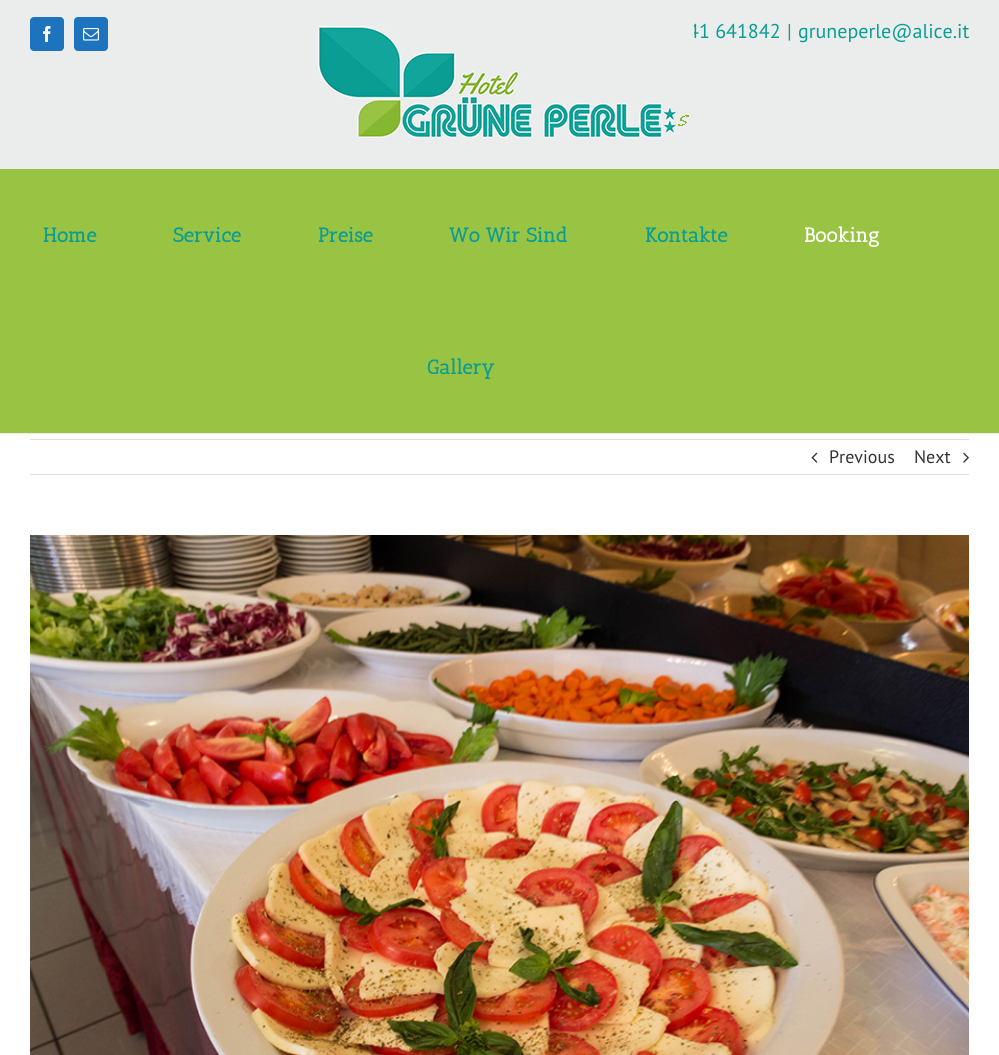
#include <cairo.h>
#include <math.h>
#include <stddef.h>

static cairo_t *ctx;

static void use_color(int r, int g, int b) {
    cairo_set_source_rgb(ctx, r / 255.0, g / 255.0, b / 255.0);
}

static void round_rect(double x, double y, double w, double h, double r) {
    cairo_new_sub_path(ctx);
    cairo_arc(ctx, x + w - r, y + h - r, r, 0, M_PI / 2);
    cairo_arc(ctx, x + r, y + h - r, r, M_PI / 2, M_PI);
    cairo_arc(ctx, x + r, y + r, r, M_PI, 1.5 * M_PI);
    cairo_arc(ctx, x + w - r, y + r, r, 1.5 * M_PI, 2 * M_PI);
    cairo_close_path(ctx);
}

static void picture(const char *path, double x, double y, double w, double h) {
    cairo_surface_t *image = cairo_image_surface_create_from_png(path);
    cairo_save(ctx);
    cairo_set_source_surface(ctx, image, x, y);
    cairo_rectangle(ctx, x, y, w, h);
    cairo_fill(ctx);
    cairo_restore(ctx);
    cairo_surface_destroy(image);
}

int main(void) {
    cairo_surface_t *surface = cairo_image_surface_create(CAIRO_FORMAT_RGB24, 999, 1055);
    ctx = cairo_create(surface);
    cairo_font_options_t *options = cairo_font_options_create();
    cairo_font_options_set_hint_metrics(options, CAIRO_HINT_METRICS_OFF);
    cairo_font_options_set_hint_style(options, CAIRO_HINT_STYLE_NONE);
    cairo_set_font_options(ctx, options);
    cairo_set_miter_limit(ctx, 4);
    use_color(255, 255, 255);
    cairo_paint(ctx);
    use_color(235, 237, 237);
    cairo_rectangle(ctx, 0, 0, 999, 169);
    cairo_fill(ctx);
    use_color(30, 115, 190);
    round_rect(30.5, 17.5, 33, 33, 3.5);
    cairo_fill_preserve(ctx);
    cairo_set_line_width(ctx, 1);
    cairo_stroke(ctx);
    picture("img1.png", 43, 26, 8, 16);
    round_rect(74.5, 17.5, 33, 33, 3.5);
    cairo_fill_preserve(ctx);
    cairo_stroke(ctx);
    picture("img2.png", 83, 28, 16, 13);
    cairo_select_font_face(ctx, "PT Sans", CAIRO_FONT_SLANT_NORMAL, CAIRO_FONT_WEIGHT_NORMAL);
    cairo_set_font_size(ctx, 20);
    use_color(10, 157, 147);
    cairo_move_to(ctx, 688, 38);
    cairo_show_text(ctx, "41 641842");
    cairo_move_to(ctx, 787, 38);
    cairo_show_text(ctx, "|");
    cairo_move_to(ctx, 798, 38);
    cairo_show_text(ctx, "gruneperle@alice.it");
    picture("img3.png", 315, 23, 379, 117);
    use_color(153, 195, 67);
    cairo_rectangle(ctx, 0, 169, 999, 264);
    cairo_fill(ctx);
    use_color(235, 237, 237);
    cairo_rectangle(ctx, 0, 433, 999, 1);
    cairo_fill(ctx);
    cairo_select_font_face(ctx, "Antic Slab", CAIRO_FONT_SLANT_NORMAL, CAIRO_FONT_WEIGHT_BOLD);
    use_color(10, 157, 147);
    cairo_move_to(ctx, 43, 242);
    cairo_show_text(ctx, "Home");
    cairo_move_to(ctx, 173, 242);
    cairo_show_text(ctx, "Service");
    cairo_move_to(ctx, 318, 242);
    cairo_show_text(ctx, "Preise");
    cairo_move_to(ctx, 449, 242);
    cairo_show_text(ctx, "Wo Wir Sind");
    cairo_move_to(ctx, 645, 242);
    cairo_show_text(ctx, "Kontakte");
    use_color(255, 255, 255);
    cairo_move_to(ctx, 804, 242);
    cairo_show_text(ctx, "Booking");
    use_color(10, 157, 147);
    cairo_move_to(ctx, 427, 374);
    cairo_show_text(ctx, "Gallery");
    use_color(224, 222, 222);
    cairo_rectangle(ctx, 30, 439, 939, 1);
    cairo_fill(ctx);
    cairo_rectangle(ctx, 30, 474, 939, 1);
    cairo_fill(ctx);
    picture("img4.png", 811, 452, 7, 11);
    cairo_select_font_face(ctx, "PT Sans", CAIRO_FONT_SLANT_NORMAL, CAIRO_FONT_WEIGHT_NORMAL);
    cairo_set_font_size(ctx, 18);
    use_color(51, 51, 51);
    cairo_move_to(ctx, 829, 463);
    cairo_show_text(ctx, "Previous");
    cairo_move_to(ctx, 914, 463);
    cairo_show_text(ctx, "Next");
    picture("img5.png", 963, 452, 6, 11);
    picture("img6.png", 30, 535, 939, 520);
    cairo_surface_write_to_png(surface, "result.png");
    cairo_font_options_destroy(options);
    cairo_destroy(ctx);
    cairo_surface_destroy(surface);
    return 0;
}
